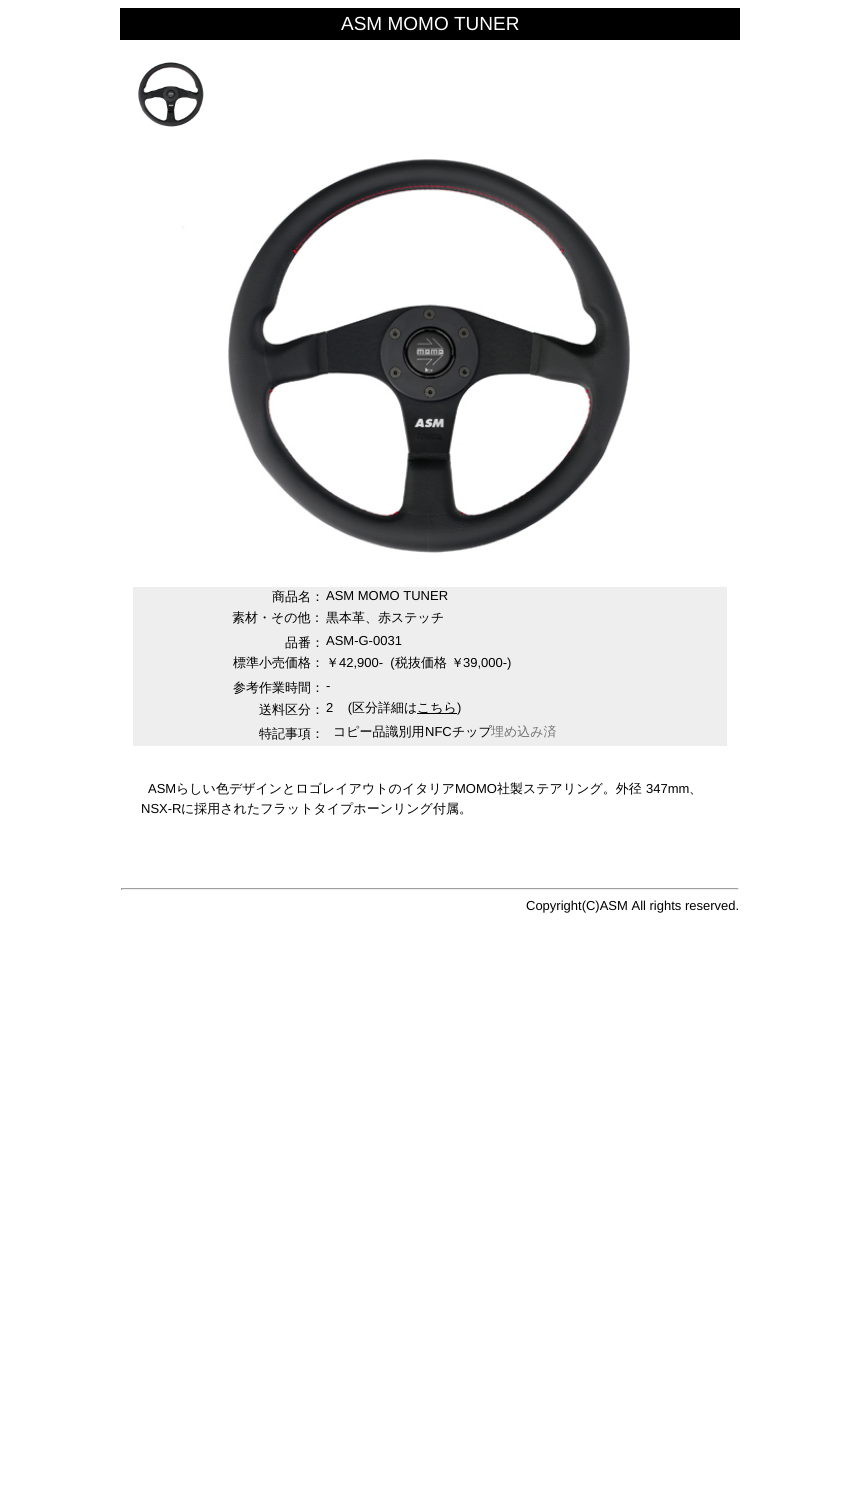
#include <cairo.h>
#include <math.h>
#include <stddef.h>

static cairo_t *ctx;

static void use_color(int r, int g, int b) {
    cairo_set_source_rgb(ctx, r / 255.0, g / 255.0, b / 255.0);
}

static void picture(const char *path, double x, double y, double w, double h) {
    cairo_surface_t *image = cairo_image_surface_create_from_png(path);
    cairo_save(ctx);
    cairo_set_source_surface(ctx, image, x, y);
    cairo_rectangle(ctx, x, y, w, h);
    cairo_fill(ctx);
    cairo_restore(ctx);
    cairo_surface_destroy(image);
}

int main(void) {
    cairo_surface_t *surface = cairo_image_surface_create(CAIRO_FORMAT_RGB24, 860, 1504);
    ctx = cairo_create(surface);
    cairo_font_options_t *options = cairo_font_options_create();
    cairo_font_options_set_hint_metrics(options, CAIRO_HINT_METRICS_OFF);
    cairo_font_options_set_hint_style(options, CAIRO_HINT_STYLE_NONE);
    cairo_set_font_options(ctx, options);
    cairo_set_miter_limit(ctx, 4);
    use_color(255, 255, 255);
    cairo_paint(ctx);
    use_color(0, 0, 0);
    cairo_rectangle(ctx, 120, 8, 620, 32);
    cairo_fill(ctx);
    cairo_select_font_face(ctx, "Liberation Sans", CAIRO_FONT_SLANT_NORMAL, CAIRO_FONT_WEIGHT_NORMAL);
    cairo_set_font_size(ctx, 19);
    use_color(255, 255, 255);
    cairo_move_to(ctx, 341, 30);
    cairo_show_text(ctx, "ASM MOMO TUNER");
    picture("img1.png", 138, 62, 66, 65);
    picture("img2.png", 182, 159, 448, 394);
    use_color(238, 238, 238);
    cairo_rectangle(ctx, 133, 587, 594, 159);
    cairo_fill(ctx);
    cairo_select_font_face(ctx, "WenQuanYi Zen Hei Medium", CAIRO_FONT_SLANT_NORMAL, CAIRO_FONT_WEIGHT_NORMAL);
    cairo_set_font_size(ctx, 13);
    use_color(0, 0, 0);
    cairo_move_to(ctx, 272, 601);
    cairo_show_text(ctx, "商品名：");
    cairo_select_font_face(ctx, "Liberation Sans", CAIRO_FONT_SLANT_NORMAL, CAIRO_FONT_WEIGHT_NORMAL);
    cairo_move_to(ctx, 326, 600);
    cairo_show_text(ctx, "ASM MOMO TUNER");
    cairo_select_font_face(ctx, "WenQuanYi Zen Hei Medium", CAIRO_FONT_SLANT_NORMAL, CAIRO_FONT_WEIGHT_NORMAL);
    cairo_move_to(ctx, 232, 622);
    cairo_show_text(ctx, "素材・その他：");
    cairo_move_to(ctx, 326, 622);
    cairo_show_text(ctx, "黒本革、赤ステッチ");
    cairo_move_to(ctx, 285, 647);
    cairo_show_text(ctx, "品番：");
    cairo_select_font_face(ctx, "Liberation Sans", CAIRO_FONT_SLANT_NORMAL, CAIRO_FONT_WEIGHT_NORMAL);
    cairo_move_to(ctx, 326, 645);
    cairo_show_text(ctx, "ASM-G-0031");
    cairo_select_font_face(ctx, "WenQuanYi Zen Hei Medium", CAIRO_FONT_SLANT_NORMAL, CAIRO_FONT_WEIGHT_NORMAL);
    cairo_move_to(ctx, 233, 667);
    cairo_show_text(ctx, "標準小売価格：");
    cairo_move_to(ctx, 326, 667);
    cairo_show_text(ctx, "￥");
    cairo_select_font_face(ctx, "Liberation Sans", CAIRO_FONT_SLANT_NORMAL, CAIRO_FONT_WEIGHT_NORMAL);
    cairo_move_to(ctx, 339, 667);
    cairo_show_text(ctx, "42,900-  (");
    cairo_select_font_face(ctx, "WenQuanYi Zen Hei Medium", CAIRO_FONT_SLANT_NORMAL, CAIRO_FONT_WEIGHT_NORMAL);
    cairo_move_to(ctx, 395, 667);
    cairo_show_text(ctx, "税抜価格 ￥");
    cairo_select_font_face(ctx, "Liberation Sans", CAIRO_FONT_SLANT_NORMAL, CAIRO_FONT_WEIGHT_NORMAL);
    cairo_move_to(ctx, 463, 667);
    cairo_show_text(ctx, "39,000-)");
    cairo_select_font_face(ctx, "WenQuanYi Zen Hei Medium", CAIRO_FONT_SLANT_NORMAL, CAIRO_FONT_WEIGHT_NORMAL);
    cairo_move_to(ctx, 233, 692);
    cairo_show_text(ctx, "参考作業時間：");
    cairo_select_font_face(ctx, "Liberation Sans", CAIRO_FONT_SLANT_NORMAL, CAIRO_FONT_WEIGHT_NORMAL);
    cairo_move_to(ctx, 326, 690);
    cairo_show_text(ctx, "-");
    cairo_select_font_face(ctx, "WenQuanYi Zen Hei Medium", CAIRO_FONT_SLANT_NORMAL, CAIRO_FONT_WEIGHT_NORMAL);
    cairo_move_to(ctx, 259, 714);
    cairo_show_text(ctx, "送料区分：");
    cairo_select_font_face(ctx, "Liberation Sans", CAIRO_FONT_SLANT_NORMAL, CAIRO_FONT_WEIGHT_NORMAL);
    cairo_move_to(ctx, 326, 712);
    cairo_show_text(ctx, "2    (");
    cairo_select_font_face(ctx, "WenQuanYi Zen Hei Medium", CAIRO_FONT_SLANT_NORMAL, CAIRO_FONT_WEIGHT_NORMAL);
    cairo_move_to(ctx, 352, 712);
    cairo_show_text(ctx, "区分詳細は");
    cairo_rectangle(ctx, 417, 713, 40, 1);
    cairo_fill(ctx);
    cairo_move_to(ctx, 417, 712);
    cairo_show_text(ctx, "こちら");
    cairo_select_font_face(ctx, "Liberation Sans", CAIRO_FONT_SLANT_NORMAL, CAIRO_FONT_WEIGHT_NORMAL);
    cairo_move_to(ctx, 457, 712);
    cairo_show_text(ctx, ")");
    cairo_select_font_face(ctx, "WenQuanYi Zen Hei Medium", CAIRO_FONT_SLANT_NORMAL, CAIRO_FONT_WEIGHT_NORMAL);
    cairo_move_to(ctx, 259, 738);
    cairo_show_text(ctx, "特記事項：");
    cairo_move_to(ctx, 333, 736);
    cairo_show_text(ctx, "コピー品識別用");
    cairo_select_font_face(ctx, "Liberation Sans", CAIRO_FONT_SLANT_NORMAL, CAIRO_FONT_WEIGHT_NORMAL);
    cairo_move_to(ctx, 425, 736);
    cairo_show_text(ctx, "NFC");
    cairo_select_font_face(ctx, "WenQuanYi Zen Hei Medium", CAIRO_FONT_SLANT_NORMAL, CAIRO_FONT_WEIGHT_NORMAL);
    cairo_move_to(ctx, 452, 736);
    cairo_show_text(ctx, "チップ");
    use_color(119, 119, 119);
    cairo_move_to(ctx, 491, 736);
    cairo_show_text(ctx, "埋め込み済");
    cairo_select_font_face(ctx, "Liberation Sans", CAIRO_FONT_SLANT_NORMAL, CAIRO_FONT_WEIGHT_NORMAL);
    use_color(0, 0, 0);
    cairo_move_to(ctx, 148, 793);
    cairo_show_text(ctx, "ASM");
    cairo_select_font_face(ctx, "WenQuanYi Zen Hei Medium", CAIRO_FONT_SLANT_NORMAL, CAIRO_FONT_WEIGHT_NORMAL);
    cairo_move_to(ctx, 176, 793);
    cairo_show_text(ctx, "らしい色デザインとロゴレイアウトのイタリア");
    cairo_select_font_face(ctx, "Liberation Sans", CAIRO_FONT_SLANT_NORMAL, CAIRO_FONT_WEIGHT_NORMAL);
    cairo_move_to(ctx, 455, 793);
    cairo_show_text(ctx, "MOMO");
    cairo_select_font_face(ctx, "WenQuanYi Zen Hei Medium", CAIRO_FONT_SLANT_NORMAL, CAIRO_FONT_WEIGHT_NORMAL);
    cairo_move_to(ctx, 497, 793);
    cairo_show_text(ctx, "社製ステアリング。外径");
    cairo_select_font_face(ctx, "Liberation Sans", CAIRO_FONT_SLANT_NORMAL, CAIRO_FONT_WEIGHT_NORMAL);
    cairo_move_to(ctx, 646, 793);
    cairo_show_text(ctx, "347mm");
    cairo_select_font_face(ctx, "WenQuanYi Zen Hei Medium", CAIRO_FONT_SLANT_NORMAL, CAIRO_FONT_WEIGHT_NORMAL);
    cairo_move_to(ctx, 689, 793);
    cairo_show_text(ctx, "、");
    cairo_select_font_face(ctx, "Liberation Sans", CAIRO_FONT_SLANT_NORMAL, CAIRO_FONT_WEIGHT_NORMAL);
    cairo_move_to(ctx, 141, 813);
    cairo_show_text(ctx, "NSX-R");
    cairo_select_font_face(ctx, "WenQuanYi Zen Hei Medium", CAIRO_FONT_SLANT_NORMAL, CAIRO_FONT_WEIGHT_NORMAL);
    cairo_move_to(ctx, 181, 813);
    cairo_show_text(ctx, "に採用されたフラットタイプホーンリング付属。");
    use_color(159, 159, 159);
    cairo_rectangle(ctx, 121, 888, 618, 1);
    cairo_fill(ctx);
    use_color(238, 238, 238);
    cairo_rectangle(ctx, 738, 888, 1, 2);
    cairo_fill(ctx);
    cairo_rectangle(ctx, 121, 889, 618, 1);
    cairo_fill(ctx);
    use_color(159, 159, 159);
    cairo_rectangle(ctx, 121, 888, 1, 2);
    cairo_fill(ctx);
    cairo_select_font_face(ctx, "Liberation Sans", CAIRO_FONT_SLANT_NORMAL, CAIRO_FONT_WEIGHT_NORMAL);
    use_color(0, 0, 0);
    cairo_move_to(ctx, 526, 910);
    cairo_show_text(ctx, "Copyright(C)ASM All rights reserved.");
    cairo_surface_write_to_png(surface, "result.png");
    cairo_font_options_destroy(options);
    cairo_destroy(ctx);
    cairo_surface_destroy(surface);
    return 0;
}
